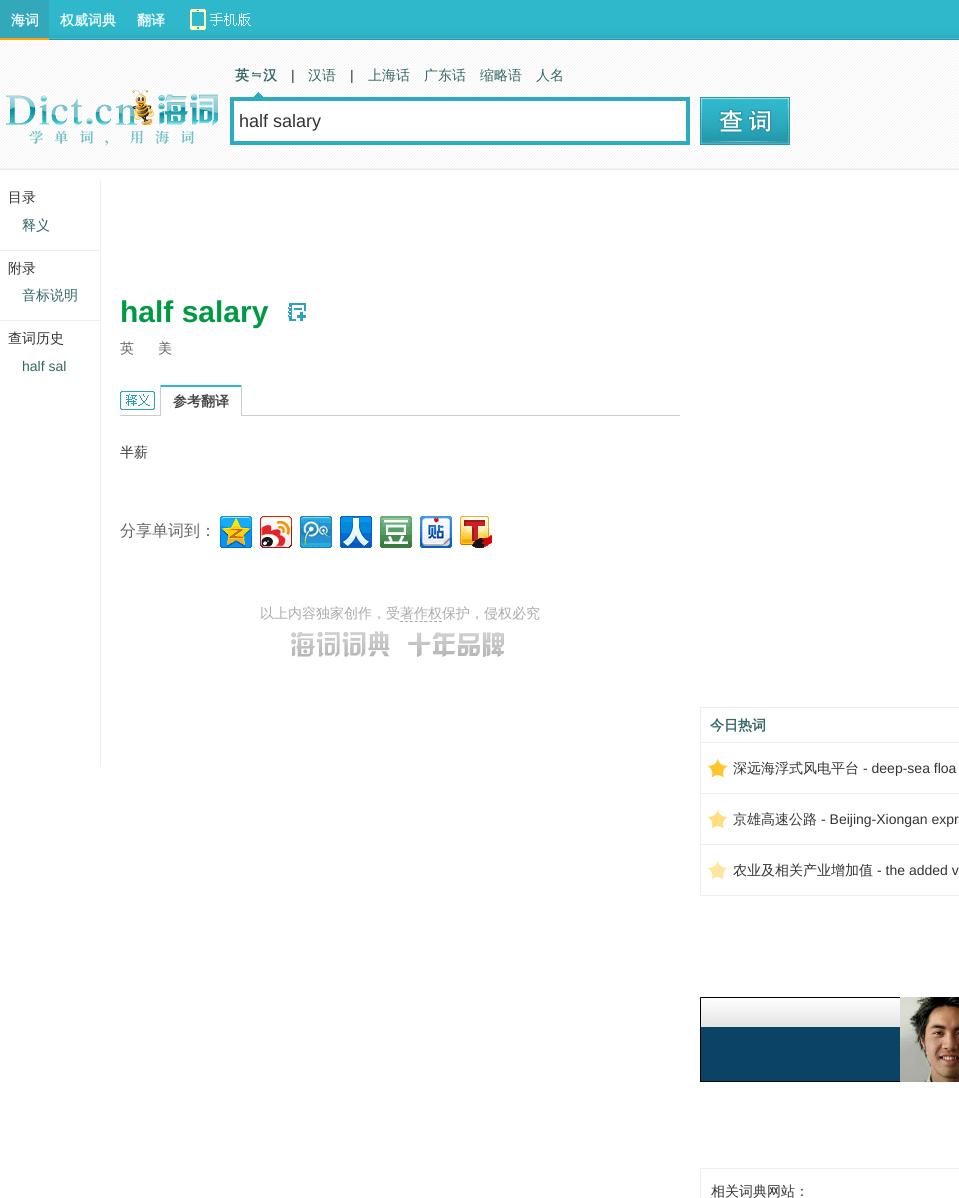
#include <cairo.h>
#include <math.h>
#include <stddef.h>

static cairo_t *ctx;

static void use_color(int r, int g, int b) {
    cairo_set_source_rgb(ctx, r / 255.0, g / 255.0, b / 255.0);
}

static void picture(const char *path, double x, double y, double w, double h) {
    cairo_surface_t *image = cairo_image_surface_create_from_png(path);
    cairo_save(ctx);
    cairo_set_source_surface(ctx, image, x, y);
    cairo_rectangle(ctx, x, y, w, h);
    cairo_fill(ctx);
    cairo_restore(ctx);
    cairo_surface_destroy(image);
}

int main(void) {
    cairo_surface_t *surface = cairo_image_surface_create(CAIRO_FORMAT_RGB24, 959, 1198);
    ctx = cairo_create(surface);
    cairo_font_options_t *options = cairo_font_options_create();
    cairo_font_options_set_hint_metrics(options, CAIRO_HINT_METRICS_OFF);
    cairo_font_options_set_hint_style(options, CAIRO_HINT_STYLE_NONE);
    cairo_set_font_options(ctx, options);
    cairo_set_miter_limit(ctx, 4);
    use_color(255, 255, 255);
    cairo_paint(ctx);
    picture("img1.png", 0, 0, 959, 170);
    use_color(50, 168, 186);
    cairo_rectangle(ctx, 0, 0, 49, 38);
    cairo_fill(ctx);
    use_color(255, 163, 3);
    cairo_rectangle(ctx, 0, 38, 49, 2);
    cairo_fill(ctx);
    cairo_select_font_face(ctx, "WenQuanYi Zen Hei", CAIRO_FONT_SLANT_NORMAL, CAIRO_FONT_WEIGHT_BOLD);
    cairo_set_font_size(ctx, 14);
    use_color(235, 248, 250);
    cairo_move_to(ctx, 11, 25);
    cairo_show_text(ctx, "海词");
    cairo_move_to(ctx, 60, 25);
    cairo_show_text(ctx, "权威词典");
    cairo_move_to(ctx, 137, 25);
    cairo_show_text(ctx, "翻译");
    picture("img2.png", 190, 9, 61, 21);
    picture("img3.png", 6, 90, 212, 56);
    picture("img4.png", 254, 92, 9, 5);
    picture("img5.png", 252, 72, 9, 6);
    use_color(51, 102, 102);
    cairo_move_to(ctx, 235, 80);
    cairo_show_text(ctx, "英　汉");
    cairo_select_font_face(ctx, "Liberation Sans", CAIRO_FONT_SLANT_NORMAL, CAIRO_FONT_WEIGHT_NORMAL);
    use_color(51, 51, 51);
    cairo_move_to(ctx, 291, 80);
    cairo_show_text(ctx, "|");
    cairo_select_font_face(ctx, "WenQuanYi Zen Hei Medium", CAIRO_FONT_SLANT_NORMAL, CAIRO_FONT_WEIGHT_NORMAL);
    use_color(51, 102, 102);
    cairo_move_to(ctx, 308, 80);
    cairo_show_text(ctx, "汉语");
    cairo_select_font_face(ctx, "Liberation Sans", CAIRO_FONT_SLANT_NORMAL, CAIRO_FONT_WEIGHT_NORMAL);
    use_color(51, 51, 51);
    cairo_move_to(ctx, 350, 80);
    cairo_show_text(ctx, "|");
    cairo_select_font_face(ctx, "WenQuanYi Zen Hei Medium", CAIRO_FONT_SLANT_NORMAL, CAIRO_FONT_WEIGHT_NORMAL);
    use_color(51, 102, 102);
    cairo_move_to(ctx, 368, 80);
    cairo_show_text(ctx, "上海话");
    cairo_move_to(ctx, 424, 80);
    cairo_show_text(ctx, "广东话");
    cairo_move_to(ctx, 480, 80);
    cairo_show_text(ctx, "缩略语");
    cairo_move_to(ctx, 536, 80);
    cairo_show_text(ctx, "人名");
    use_color(255, 255, 255);
    cairo_rectangle(ctx, 232, 99, 456, 44);
    cairo_fill_preserve(ctx);
    use_color(45, 172, 191);
    cairo_set_line_width(ctx, 4);
    cairo_stroke(ctx);
    cairo_select_font_face(ctx, "Liberation Sans", CAIRO_FONT_SLANT_NORMAL, CAIRO_FONT_WEIGHT_NORMAL);
    cairo_set_font_size(ctx, 18);
    use_color(51, 51, 51);
    cairo_move_to(ctx, 239, 127);
    cairo_show_text(ctx, "half salary");
    picture("img6.png", 700, 97, 90, 48);
    cairo_select_font_face(ctx, "WenQuanYi Zen Hei Medium", CAIRO_FONT_SLANT_NORMAL, CAIRO_FONT_WEIGHT_NORMAL);
    cairo_set_font_size(ctx, 14);
    cairo_move_to(ctx, 8, 202);
    cairo_show_text(ctx, "目录");
    use_color(51, 102, 102);
    cairo_move_to(ctx, 22, 230);
    cairo_show_text(ctx, "释义");
    use_color(239, 239, 239);
    cairo_rectangle(ctx, 0, 250, 100, 1);
    cairo_fill(ctx);
    use_color(51, 51, 51);
    cairo_move_to(ctx, 8, 273);
    cairo_show_text(ctx, "附录");
    use_color(51, 102, 102);
    cairo_move_to(ctx, 22, 300);
    cairo_show_text(ctx, "音标说明");
    use_color(239, 239, 239);
    cairo_rectangle(ctx, 0, 320, 100, 1);
    cairo_fill(ctx);
    use_color(51, 51, 51);
    cairo_move_to(ctx, 8, 343);
    cairo_show_text(ctx, "查词历史");
    cairo_select_font_face(ctx, "Liberation Sans", CAIRO_FONT_SLANT_NORMAL, CAIRO_FONT_WEIGHT_NORMAL);
    use_color(51, 102, 102);
    cairo_move_to(ctx, 22, 371);
    cairo_show_text(ctx, "half sal");
    use_color(239, 239, 239);
    cairo_rectangle(ctx, 100, 180, 1, 587);
    cairo_fill(ctx);
    cairo_select_font_face(ctx, "Liberation Sans", CAIRO_FONT_SLANT_NORMAL, CAIRO_FONT_WEIGHT_BOLD);
    cairo_set_font_size(ctx, 30);
    use_color(0, 153, 68);
    cairo_move_to(ctx, 120, 322);
    cairo_show_text(ctx, "half salary");
    picture("img7.png", 288, 303, 18, 18);
    cairo_select_font_face(ctx, "WenQuanYi Zen Hei Medium", CAIRO_FONT_SLANT_NORMAL, CAIRO_FONT_WEIGHT_NORMAL);
    cairo_set_font_size(ctx, 14);
    use_color(102, 102, 102);
    cairo_move_to(ctx, 120, 353);
    cairo_show_text(ctx, "英");
    cairo_move_to(ctx, 158, 353);
    cairo_show_text(ctx, "美");
    picture("img8.png", 120, 391, 35, 19);
    use_color(204, 204, 204);
    cairo_rectangle(ctx, 120, 415, 560, 1);
    cairo_fill(ctx);
    use_color(255, 255, 255);
    cairo_rectangle(ctx, 160, 415, 82, 1);
    cairo_fill(ctx);
    use_color(47, 184, 203);
    cairo_new_path(ctx);
    cairo_move_to(ctx, 160, 385);
    cairo_line_to(ctx, 242, 385);
    cairo_line_to(ctx, 241, 387);
    cairo_line_to(ctx, 161, 387);
    cairo_close_path(ctx);
    cairo_fill(ctx);
    use_color(204, 204, 204);
    cairo_new_path(ctx);
    cairo_move_to(ctx, 242, 385);
    cairo_line_to(ctx, 242, 416);
    cairo_line_to(ctx, 241, 416);
    cairo_line_to(ctx, 241, 387);
    cairo_close_path(ctx);
    cairo_fill(ctx);
    cairo_new_path(ctx);
    cairo_move_to(ctx, 160, 416);
    cairo_line_to(ctx, 160, 385);
    cairo_line_to(ctx, 161, 387);
    cairo_line_to(ctx, 161, 416);
    cairo_close_path(ctx);
    cairo_fill(ctx);
    cairo_select_font_face(ctx, "WenQuanYi Zen Hei", CAIRO_FONT_SLANT_NORMAL, CAIRO_FONT_WEIGHT_BOLD);
    use_color(68, 68, 68);
    cairo_move_to(ctx, 173, 406);
    cairo_show_text(ctx, "参考翻译");
    cairo_select_font_face(ctx, "WenQuanYi Zen Hei Medium", CAIRO_FONT_SLANT_NORMAL, CAIRO_FONT_WEIGHT_NORMAL);
    use_color(51, 51, 51);
    cairo_move_to(ctx, 120, 457);
    cairo_show_text(ctx, "半薪");
    cairo_set_font_size(ctx, 16);
    use_color(102, 102, 102);
    cairo_move_to(ctx, 120, 536);
    cairo_show_text(ctx, "分享单词到：");
    picture("img9.png", 220, 516, 32, 32);
    picture("img10.png", 260, 516, 32, 32);
    picture("img11.png", 300, 516, 32, 32);
    picture("img12.png", 340, 516, 32, 32);
    picture("img13.png", 380, 516, 32, 32);
    picture("img14.png", 420, 516, 32, 32);
    picture("img15.png", 460, 516, 32, 32);
    cairo_set_font_size(ctx, 14);
    use_color(170, 170, 170);
    cairo_move_to(ctx, 260, 618);
    cairo_show_text(ctx, "以上内容独家创作，受著作权保护，侵权必究");
    cairo_new_path(ctx);
    cairo_move_to(ctx, 400, 621.5);
    cairo_line_to(ctx, 442, 621.5);
    cairo_set_line_width(ctx, 1);
    cairo_set_dash(ctx, (double[]){3, 1.88}, 2, 0);
    cairo_stroke(ctx);
    picture("img16.png", 291, 631, 213, 26);
    cairo_rectangle(ctx, 700.5, 707.5, 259, 188);
    use_color(238, 238, 238);
    cairo_set_dash(ctx, NULL, 0, 0);
    cairo_stroke(ctx);
    cairo_select_font_face(ctx, "WenQuanYi Zen Hei", CAIRO_FONT_SLANT_NORMAL, CAIRO_FONT_WEIGHT_BOLD);
    use_color(51, 102, 102);
    cairo_move_to(ctx, 710, 730);
    cairo_show_text(ctx, "今日热词");
    use_color(238, 238, 238);
    cairo_rectangle(ctx, 701, 742, 258, 1);
    cairo_fill(ctx);
    picture("img17.png", 707, 758, 21, 20);
    cairo_select_font_face(ctx, "WenQuanYi Zen Hei Medium", CAIRO_FONT_SLANT_NORMAL, CAIRO_FONT_WEIGHT_NORMAL);
    use_color(51, 51, 51);
    cairo_move_to(ctx, 733, 773);
    cairo_show_text(ctx, "深远海浮式风电平台");
    cairo_select_font_face(ctx, "Liberation Sans", CAIRO_FONT_SLANT_NORMAL, CAIRO_FONT_WEIGHT_NORMAL);
    cairo_move_to(ctx, 863, 773);
    cairo_show_text(ctx, "- deep-sea floa");
    use_color(238, 238, 238);
    cairo_rectangle(ctx, 701, 793, 258, 1);
    cairo_fill(ctx);
    picture("img18.png", 707, 809, 21, 20);
    cairo_select_font_face(ctx, "WenQuanYi Zen Hei Medium", CAIRO_FONT_SLANT_NORMAL, CAIRO_FONT_WEIGHT_NORMAL);
    use_color(51, 51, 51);
    cairo_move_to(ctx, 733, 824);
    cairo_show_text(ctx, "京雄高速公路");
    cairo_select_font_face(ctx, "Liberation Sans", CAIRO_FONT_SLANT_NORMAL, CAIRO_FONT_WEIGHT_NORMAL);
    cairo_move_to(ctx, 821, 824);
    cairo_show_text(ctx, "- Beijing-Xiongan expr");
    use_color(238, 238, 238);
    cairo_rectangle(ctx, 701, 844, 258, 1);
    cairo_fill(ctx);
    picture("img19.png", 707, 860, 21, 20);
    cairo_select_font_face(ctx, "WenQuanYi Zen Hei Medium", CAIRO_FONT_SLANT_NORMAL, CAIRO_FONT_WEIGHT_NORMAL);
    use_color(51, 51, 51);
    cairo_move_to(ctx, 733, 875);
    cairo_show_text(ctx, "农业及相关产业增加值");
    cairo_select_font_face(ctx, "Liberation Sans", CAIRO_FONT_SLANT_NORMAL, CAIRO_FONT_WEIGHT_NORMAL);
    cairo_move_to(ctx, 877, 875);
    cairo_show_text(ctx, "- the added v");
    picture("img20.png", 700, 997, 259, 85);
    cairo_rectangle(ctx, 700.5, 1168.5, 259, 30);
    use_color(239, 239, 239);
    cairo_stroke(ctx);
    cairo_select_font_face(ctx, "WenQuanYi Zen Hei Medium", CAIRO_FONT_SLANT_NORMAL, CAIRO_FONT_WEIGHT_NORMAL);
    use_color(51, 51, 51);
    cairo_move_to(ctx, 711, 1196);
    cairo_show_text(ctx, "相关词典网站：");
    cairo_surface_write_to_png(surface, "result.png");
    cairo_font_options_destroy(options);
    cairo_destroy(ctx);
    cairo_surface_destroy(surface);
    return 0;
}
